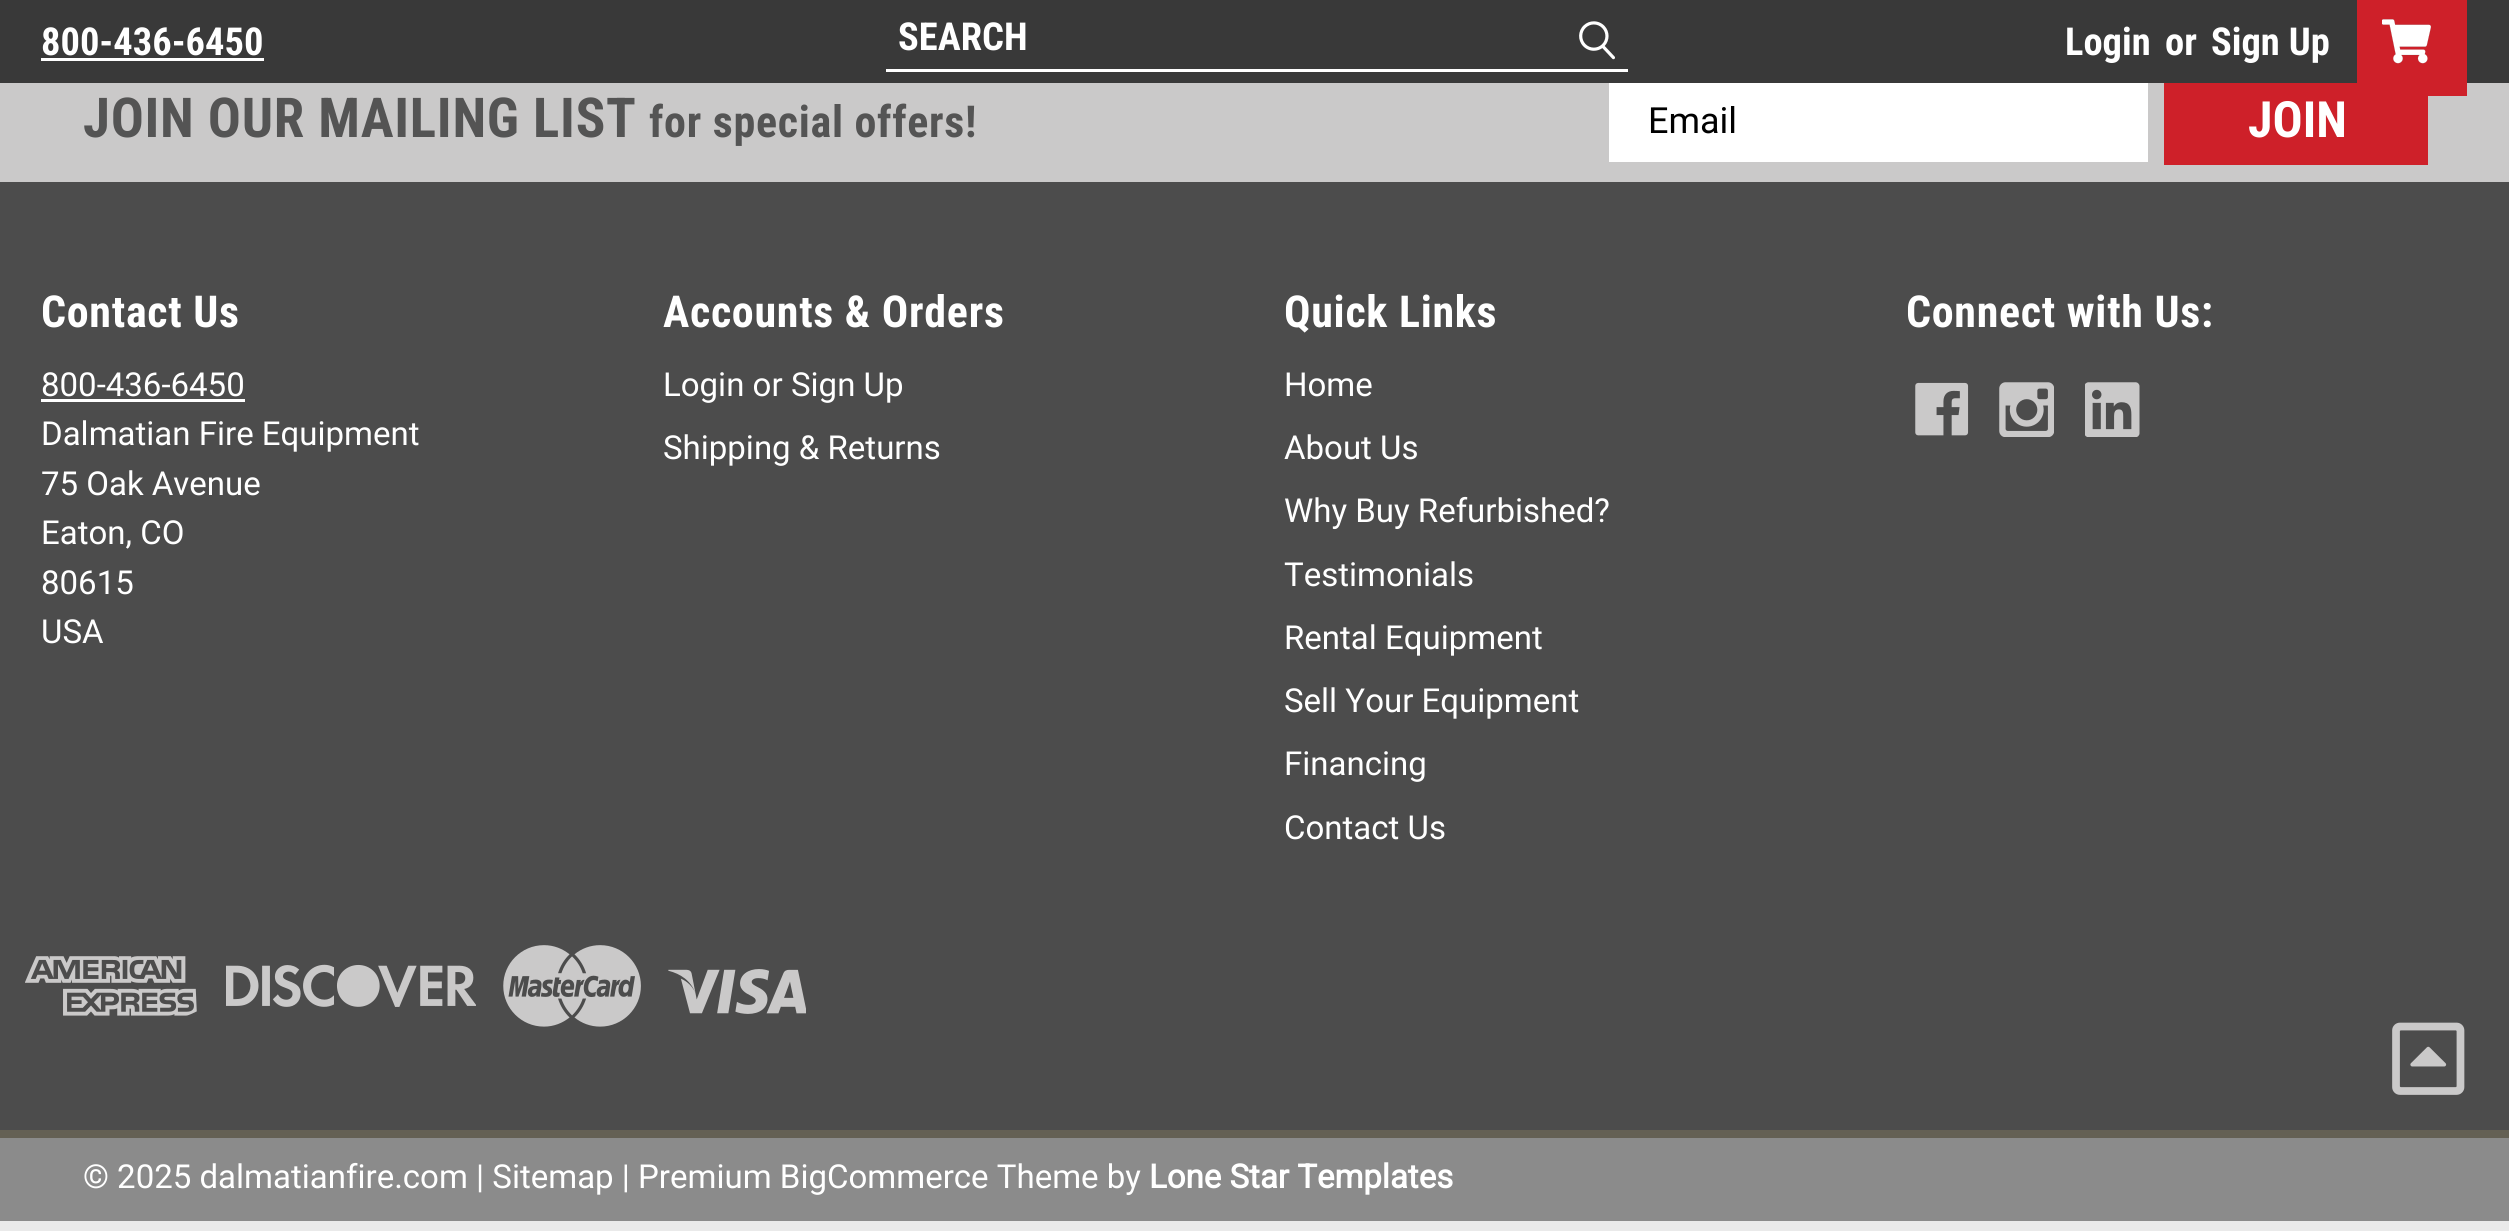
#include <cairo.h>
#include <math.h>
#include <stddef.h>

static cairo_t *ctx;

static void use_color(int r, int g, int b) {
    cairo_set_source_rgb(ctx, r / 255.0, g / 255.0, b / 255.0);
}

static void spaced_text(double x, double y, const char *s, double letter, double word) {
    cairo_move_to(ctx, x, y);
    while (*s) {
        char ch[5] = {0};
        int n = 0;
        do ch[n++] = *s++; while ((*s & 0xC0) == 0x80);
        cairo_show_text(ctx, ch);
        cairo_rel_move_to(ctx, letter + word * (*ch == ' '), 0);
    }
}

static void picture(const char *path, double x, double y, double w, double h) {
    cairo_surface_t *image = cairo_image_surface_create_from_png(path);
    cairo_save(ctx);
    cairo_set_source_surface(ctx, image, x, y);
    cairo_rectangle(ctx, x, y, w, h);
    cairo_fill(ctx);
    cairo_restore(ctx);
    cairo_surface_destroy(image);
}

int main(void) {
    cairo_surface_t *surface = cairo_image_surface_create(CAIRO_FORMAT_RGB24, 2509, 1231);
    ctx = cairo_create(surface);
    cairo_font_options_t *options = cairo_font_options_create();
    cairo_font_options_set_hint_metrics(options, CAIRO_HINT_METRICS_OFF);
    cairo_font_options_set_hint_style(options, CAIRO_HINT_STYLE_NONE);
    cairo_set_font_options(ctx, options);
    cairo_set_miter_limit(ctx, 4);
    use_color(234, 234, 234);
    cairo_paint(ctx);
    use_color(202, 201, 201);
    cairo_rectangle(ctx, 0, 83, 2509, 99);
    cairo_fill(ctx);
    use_color(255, 255, 255);
    cairo_rectangle(ctx, 1609, 83, 539, 79);
    cairo_fill(ctx);
    cairo_rectangle(ctx, 1607.5, 78.5, 542, 85);
    use_color(202, 201, 201);
    cairo_set_line_width(ctx, 3);
    cairo_stroke(ctx);
    use_color(57, 57, 57);
    cairo_rectangle(ctx, 0, 0, 2509, 83);
    cairo_fill(ctx);
    use_color(255, 255, 255);
    cairo_rectangle(ctx, 886, 69, 742, 3);
    cairo_fill(ctx);
    cairo_select_font_face(ctx, "Roboto Condensed", CAIRO_FONT_SLANT_NORMAL, CAIRO_FONT_WEIGHT_BOLD);
    cairo_set_font_size(ctx, 38.5);
    cairo_move_to(ctx, 898, 50);
    cairo_show_text(ctx, "SEARCH");
    picture("img1.png", 1579, 21, 36, 39);
    cairo_move_to(ctx, 41, 55);
    cairo_show_text(ctx, "800-436-6450");
    cairo_rectangle(ctx, 41, 58, 223, 3);
    cairo_fill(ctx);
    cairo_move_to(ctx, 2065, 55);
    cairo_show_text(ctx, "Login");
    cairo_move_to(ctx, 2165, 55);
    cairo_show_text(ctx, "or");
    cairo_move_to(ctx, 2211, 55);
    cairo_show_text(ctx, "Sign Up");
    use_color(206, 32, 41);
    cairo_rectangle(ctx, 2164, 83, 264, 82);
    cairo_fill(ctx);
    cairo_rectangle(ctx, 2357, 0, 110, 96);
    cairo_fill(ctx);
    picture("img2.png", 2382, 19, 49, 45);
    use_color(76, 76, 76);
    cairo_rectangle(ctx, 0, 182, 2509, 948);
    cairo_fill(ctx);
    cairo_set_font_size(ctx, 55);
    use_color(84, 84, 84);
    spaced_text(83, 137, "JOIN OUR MAILING LIST", 0.7, 0);
    cairo_set_font_size(ctx, 44);
    spaced_text(649, 137, "for special offers!", 0.7, 0);
    cairo_select_font_face(ctx, "Roboto", CAIRO_FONT_SLANT_NORMAL, CAIRO_FONT_WEIGHT_NORMAL);
    cairo_set_font_size(ctx, 36);
    use_color(0, 0, 0);
    cairo_move_to(ctx, 1648, 133);
    cairo_show_text(ctx, "Email");
    cairo_select_font_face(ctx, "Roboto Condensed", CAIRO_FONT_SLANT_NORMAL, CAIRO_FONT_WEIGHT_BOLD);
    cairo_set_font_size(ctx, 50);
    use_color(255, 255, 255);
    cairo_move_to(ctx, 2248, 137);
    cairo_show_text(ctx, "JOIN");
    cairo_set_font_size(ctx, 44);
    spaced_text(41, 327, "Contact Us", 0.7, 0);
    cairo_select_font_face(ctx, "Roboto", CAIRO_FONT_SLANT_NORMAL, CAIRO_FONT_WEIGHT_NORMAL);
    cairo_set_font_size(ctx, 33);
    cairo_move_to(ctx, 41, 396);
    cairo_show_text(ctx, "800-436-6450");
    cairo_rectangle(ctx, 41, 399, 204, 3);
    cairo_fill(ctx);
    cairo_move_to(ctx, 41, 445);
    cairo_show_text(ctx, "Dalmatian Fire Equipment");
    cairo_move_to(ctx, 41, 495);
    cairo_show_text(ctx, "75 Oak Avenue");
    cairo_move_to(ctx, 41, 544);
    cairo_show_text(ctx, "Eaton, CO");
    cairo_move_to(ctx, 41, 594);
    cairo_show_text(ctx, "80615");
    cairo_move_to(ctx, 41, 643);
    cairo_show_text(ctx, "USA");
    cairo_select_font_face(ctx, "Roboto Condensed", CAIRO_FONT_SLANT_NORMAL, CAIRO_FONT_WEIGHT_BOLD);
    cairo_set_font_size(ctx, 44);
    spaced_text(663, 327, "Accounts & Orders", 0.7, 0);
    cairo_select_font_face(ctx, "Roboto", CAIRO_FONT_SLANT_NORMAL, CAIRO_FONT_WEIGHT_NORMAL);
    cairo_set_font_size(ctx, 33);
    cairo_move_to(ctx, 663, 396);
    cairo_show_text(ctx, "Login or");
    cairo_move_to(ctx, 791, 396);
    cairo_show_text(ctx, "Sign Up");
    cairo_move_to(ctx, 663, 459);
    cairo_show_text(ctx, "Shipping & Returns");
    cairo_select_font_face(ctx, "Roboto Condensed", CAIRO_FONT_SLANT_NORMAL, CAIRO_FONT_WEIGHT_BOLD);
    cairo_set_font_size(ctx, 44);
    spaced_text(1284, 327, "Quick Links", 0.7, 0);
    cairo_select_font_face(ctx, "Roboto", CAIRO_FONT_SLANT_NORMAL, CAIRO_FONT_WEIGHT_NORMAL);
    cairo_set_font_size(ctx, 33);
    cairo_move_to(ctx, 1284, 396);
    cairo_show_text(ctx, "Home");
    cairo_move_to(ctx, 1284, 459);
    cairo_show_text(ctx, "About Us");
    cairo_move_to(ctx, 1284, 522);
    cairo_show_text(ctx, "Why Buy Refurbished?");
    cairo_move_to(ctx, 1284, 586);
    cairo_show_text(ctx, "Testimonials");
    cairo_move_to(ctx, 1284, 649);
    cairo_show_text(ctx, "Rental Equipment");
    cairo_move_to(ctx, 1284, 712);
    cairo_show_text(ctx, "Sell Your Equipment");
    cairo_move_to(ctx, 1284, 775);
    cairo_show_text(ctx, "Financing");
    cairo_move_to(ctx, 1284, 839);
    cairo_show_text(ctx, "Contact Us");
    cairo_select_font_face(ctx, "Roboto Condensed", CAIRO_FONT_SLANT_NORMAL, CAIRO_FONT_WEIGHT_BOLD);
    cairo_set_font_size(ctx, 44);
    spaced_text(1906, 327, "Connect with Us:", 0.7, 0);
    picture("img3.png", 1915, 382, 54, 54);
    picture("img4.png", 1999, 382, 55, 55);
    picture("img5.png", 2085, 382, 55, 55);
    picture("img6.png", 25, 956, 172, 60);
    picture("img7.png", 226, 964, 250, 43);
    picture("img8.png", 503, 945, 138, 82);
    picture("img9.png", 668, 969, 138, 45);
    picture("img10.png", 2392, 1022, 73, 73);
    use_color(139, 139, 139);
    cairo_rectangle(ctx, 0, 1138, 2509, 83);
    cairo_fill(ctx);
    use_color(100, 96, 84);
    cairo_rectangle(ctx, 0, 1130, 2509, 8);
    cairo_fill(ctx);
    cairo_select_font_face(ctx, "Roboto", CAIRO_FONT_SLANT_NORMAL, CAIRO_FONT_WEIGHT_NORMAL);
    cairo_set_font_size(ctx, 33);
    use_color(255, 255, 255);
    cairo_move_to(ctx, 83, 1188);
    cairo_show_text(ctx, "© 2025 dalmatianfire.com | Sitemap | Premium BigCommerce Theme by");
    cairo_select_font_face(ctx, "Roboto", CAIRO_FONT_SLANT_NORMAL, CAIRO_FONT_WEIGHT_BOLD);
    cairo_move_to(ctx, 1149, 1188);
    cairo_show_text(ctx, "Lone Star Templates");
    cairo_surface_write_to_png(surface, "result.png");
    cairo_font_options_destroy(options);
    cairo_destroy(ctx);
    cairo_surface_destroy(surface);
    return 0;
}
